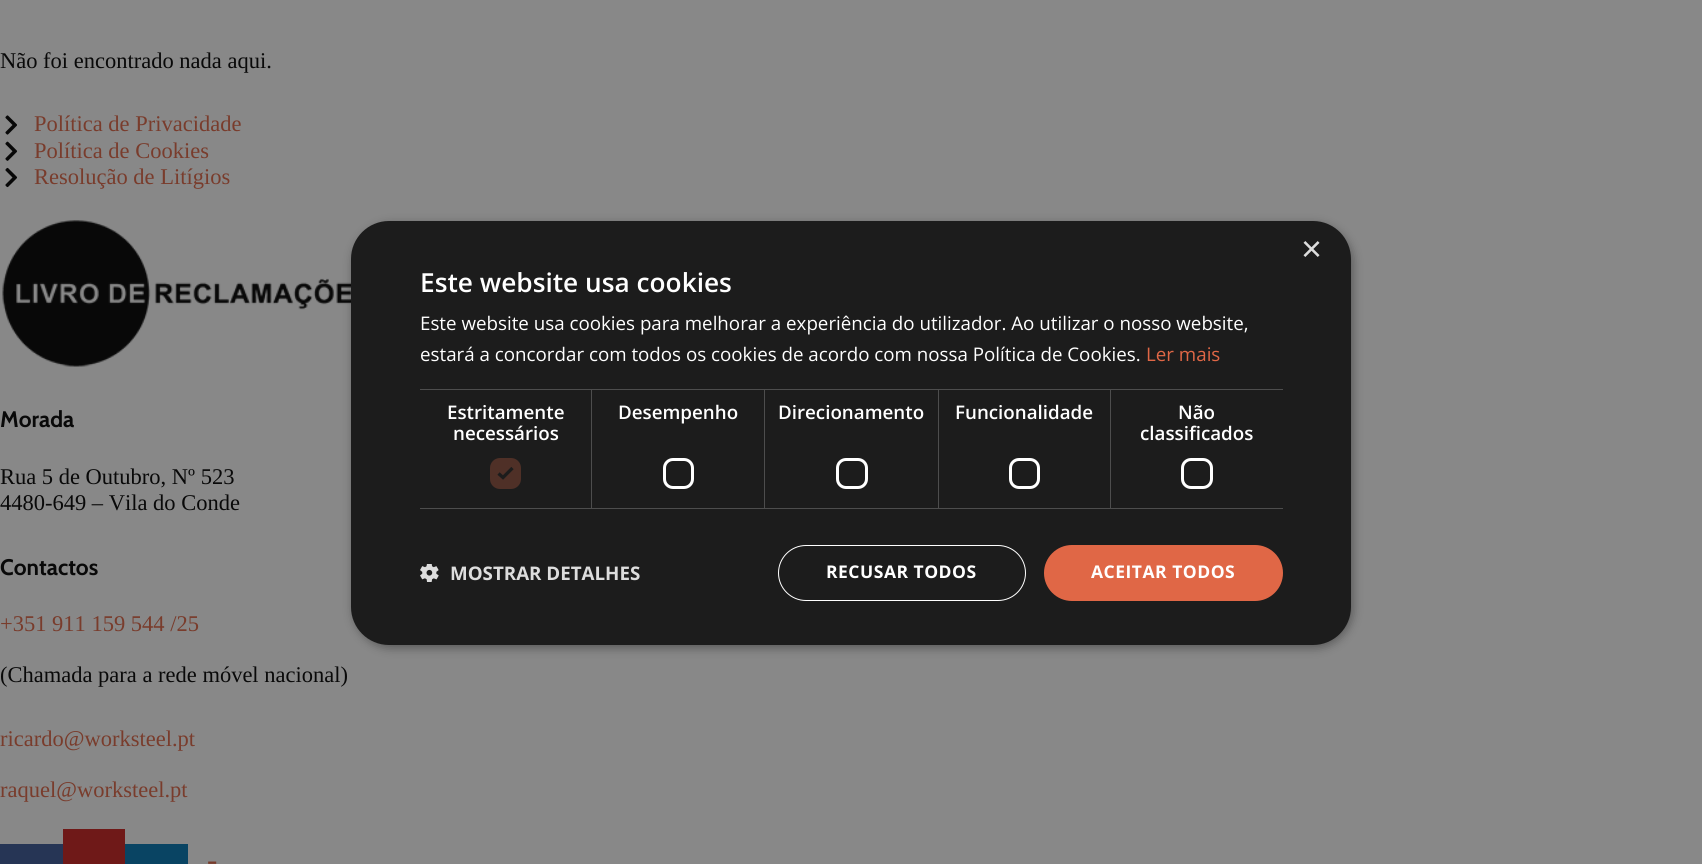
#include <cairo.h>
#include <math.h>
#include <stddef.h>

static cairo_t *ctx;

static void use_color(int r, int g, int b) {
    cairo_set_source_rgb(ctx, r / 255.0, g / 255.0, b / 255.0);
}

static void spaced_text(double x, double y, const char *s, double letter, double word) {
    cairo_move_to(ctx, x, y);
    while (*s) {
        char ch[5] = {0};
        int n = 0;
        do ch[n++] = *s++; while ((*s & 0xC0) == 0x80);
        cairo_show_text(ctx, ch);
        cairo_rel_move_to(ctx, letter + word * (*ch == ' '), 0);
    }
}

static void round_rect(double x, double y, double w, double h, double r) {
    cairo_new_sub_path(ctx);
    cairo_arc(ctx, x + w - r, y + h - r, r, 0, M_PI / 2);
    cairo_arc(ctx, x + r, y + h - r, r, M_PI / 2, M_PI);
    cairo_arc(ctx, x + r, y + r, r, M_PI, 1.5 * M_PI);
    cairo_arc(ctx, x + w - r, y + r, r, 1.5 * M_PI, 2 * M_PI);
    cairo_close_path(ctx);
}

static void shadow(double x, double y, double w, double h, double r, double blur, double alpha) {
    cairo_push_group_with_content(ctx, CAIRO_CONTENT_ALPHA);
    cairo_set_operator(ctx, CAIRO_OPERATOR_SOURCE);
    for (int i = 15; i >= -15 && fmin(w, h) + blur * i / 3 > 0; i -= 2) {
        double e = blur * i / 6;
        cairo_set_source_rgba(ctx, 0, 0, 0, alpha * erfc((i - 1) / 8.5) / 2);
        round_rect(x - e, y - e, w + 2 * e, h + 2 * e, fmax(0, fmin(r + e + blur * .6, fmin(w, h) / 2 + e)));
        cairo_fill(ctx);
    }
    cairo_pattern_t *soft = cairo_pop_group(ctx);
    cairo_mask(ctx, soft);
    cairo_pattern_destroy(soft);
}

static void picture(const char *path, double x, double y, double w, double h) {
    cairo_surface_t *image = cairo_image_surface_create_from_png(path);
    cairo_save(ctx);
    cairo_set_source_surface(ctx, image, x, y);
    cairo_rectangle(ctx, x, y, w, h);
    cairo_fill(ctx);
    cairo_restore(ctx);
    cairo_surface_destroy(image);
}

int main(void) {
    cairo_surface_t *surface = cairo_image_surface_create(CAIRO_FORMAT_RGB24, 1702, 864);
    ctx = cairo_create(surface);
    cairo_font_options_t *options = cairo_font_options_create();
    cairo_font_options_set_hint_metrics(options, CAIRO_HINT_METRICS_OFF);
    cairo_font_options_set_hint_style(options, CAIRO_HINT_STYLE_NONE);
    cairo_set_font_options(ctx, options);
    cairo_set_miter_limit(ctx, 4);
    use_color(136, 136, 136);
    cairo_paint(ctx);
    cairo_select_font_face(ctx, "Liberation Serif", CAIRO_FONT_SLANT_NORMAL, CAIRO_FONT_WEIGHT_NORMAL);
    cairo_set_font_size(ctx, 22.5);
    use_color(9, 9, 9);
    cairo_move_to(ctx, 0, 68);
    cairo_show_text(ctx, "Não foi encontrado nada aqui.");
    picture("img1.png", 5, 115, 12, 20);
    use_color(121, 60, 44);
    cairo_move_to(ctx, 34, 131);
    cairo_show_text(ctx, "Política de Privacidade");
    picture("img2.png", 5, 141, 13, 20);
    cairo_move_to(ctx, 34, 158);
    cairo_show_text(ctx, "Política de Cookies");
    picture("img3.png", 5, 167, 13, 21);
    cairo_move_to(ctx, 34, 184);
    cairo_show_text(ctx, "Resolução de Litígios");
    picture("img4.png", 2, 220, 349, 147);
    cairo_select_font_face(ctx, "Cabin", CAIRO_FONT_SLANT_NORMAL, CAIRO_FONT_WEIGHT_BOLD);
    use_color(9, 9, 9);
    cairo_move_to(ctx, 0, 427);
    cairo_show_text(ctx, "Morada");
    cairo_select_font_face(ctx, "Liberation Serif", CAIRO_FONT_SLANT_NORMAL, CAIRO_FONT_WEIGHT_NORMAL);
    cairo_move_to(ctx, 0, 484);
    cairo_show_text(ctx, "Rua 5 de Outubro, Nº 523");
    cairo_move_to(ctx, 0, 510);
    cairo_show_text(ctx, "4480-649 – Vila do Conde");
    cairo_select_font_face(ctx, "Cabin", CAIRO_FONT_SLANT_NORMAL, CAIRO_FONT_WEIGHT_BOLD);
    cairo_move_to(ctx, 0, 575);
    cairo_show_text(ctx, "Contactos");
    cairo_select_font_face(ctx, "Liberation Serif", CAIRO_FONT_SLANT_NORMAL, CAIRO_FONT_WEIGHT_NORMAL);
    use_color(121, 60, 44);
    cairo_move_to(ctx, 0, 631);
    cairo_show_text(ctx, "+351 911 159 544 /25");
    use_color(9, 9, 9);
    cairo_move_to(ctx, 0, 682);
    cairo_show_text(ctx, "(Chamada para a rede móvel nacional)");
    use_color(121, 60, 44);
    cairo_move_to(ctx, 0, 746);
    cairo_show_text(ctx, "ricardo@worksteel.pt");
    cairo_move_to(ctx, 0, 797);
    cairo_show_text(ctx, "raquel@worksteel.pt");
    use_color(38, 53, 85);
    cairo_rectangle(ctx, 0, 844, 63, 20);
    cairo_fill(ctx);
    use_color(111, 25, 24);
    cairo_rectangle(ctx, 63, 829, 62, 35);
    cairo_fill(ctx);
    use_color(9, 68, 99);
    cairo_rectangle(ctx, 125, 844, 63, 20);
    cairo_fill(ctx);
    cairo_set_font_size(ctx, 31);
    use_color(121, 60, 44);
    cairo_move_to(ctx, 207, 870);
    cairo_show_text(ctx, "-");
    use_color(0, 0, 0);
    shadow(353, 224, 1000, 424, 38, 5, 0.35);
    use_color(28, 28, 28);
    round_rect(351, 221, 1000, 424, 38);
    cairo_fill(ctx);
    cairo_select_font_face(ctx, "Liberation Sans", CAIRO_FONT_SLANT_NORMAL, CAIRO_FONT_WEIGHT_NORMAL);
    cairo_set_font_size(ctx, 36);
    use_color(221, 221, 221);
    cairo_move_to(ctx, 1301, 261);
    cairo_show_text(ctx, "×");
    cairo_select_font_face(ctx, "Open Sans SemiBold", CAIRO_FONT_SLANT_NORMAL, CAIRO_FONT_WEIGHT_NORMAL);
    cairo_set_font_size(ctx, 26.25);
    use_color(255, 255, 255);
    cairo_move_to(ctx, 420, 292);
    cairo_show_text(ctx, "Este website usa cookies");
    cairo_select_font_face(ctx, "Open Sans", CAIRO_FONT_SLANT_NORMAL, CAIRO_FONT_WEIGHT_NORMAL);
    cairo_set_font_size(ctx, 18.75);
    cairo_move_to(ctx, 420, 330);
    cairo_show_text(ctx, "Este website usa cookies para melhorar a experiência do utilizador. Ao utilizar o nosso website,");
    cairo_move_to(ctx, 420, 361);
    cairo_show_text(ctx, "estará a concordar com todos os cookies de acordo com nossa Política de Cookies.");
    use_color(224, 103, 70);
    cairo_move_to(ctx, 1146, 361);
    cairo_show_text(ctx, "Ler mais");
    use_color(77, 77, 77);
    cairo_rectangle(ctx, 420, 389, 863, 1);
    cairo_fill(ctx);
    cairo_rectangle(ctx, 591, 389, 1, 120);
    cairo_fill(ctx);
    cairo_rectangle(ctx, 420, 508, 173, 1);
    cairo_fill(ctx);
    cairo_select_font_face(ctx, "Open Sans SemiBold", CAIRO_FONT_SLANT_NORMAL, CAIRO_FONT_WEIGHT_NORMAL);
    use_color(255, 255, 255);
    cairo_move_to(ctx, 447, 419);
    cairo_show_text(ctx, "Estritamente");
    cairo_move_to(ctx, 453, 440);
    cairo_show_text(ctx, "necessários");
    use_color(79, 48, 39);
    round_rect(490, 458, 31, 31, 10);
    cairo_fill(ctx);
    cairo_new_path(ctx);
    cairo_move_to(ctx, 498.5, 473.5);
    cairo_line_to(ctx, 503, 477.5);
    cairo_line_to(ctx, 512.5, 468);
    use_color(28, 28, 28);
    cairo_set_line_width(ctx, 3.3);
    cairo_stroke(ctx);
    use_color(77, 77, 77);
    cairo_rectangle(ctx, 764, 389, 1, 120);
    cairo_fill(ctx);
    cairo_rectangle(ctx, 593, 508, 172, 1);
    cairo_fill(ctx);
    use_color(255, 255, 255);
    cairo_move_to(ctx, 618, 419);
    cairo_show_text(ctx, "Desempenho");
    round_rect(664.5, 459.5, 28, 28, 8.5);
    cairo_set_line_width(ctx, 3);
    cairo_stroke(ctx);
    use_color(77, 77, 77);
    cairo_rectangle(ctx, 938, 389, 1, 120);
    cairo_fill(ctx);
    cairo_rectangle(ctx, 765, 508, 174, 1);
    cairo_fill(ctx);
    use_color(255, 255, 255);
    cairo_move_to(ctx, 778, 419);
    cairo_show_text(ctx, "Direcionamento");
    round_rect(837.5, 459.5, 29, 28, 8.5);
    cairo_stroke(ctx);
    use_color(77, 77, 77);
    cairo_rectangle(ctx, 1110, 389, 1, 120);
    cairo_fill(ctx);
    cairo_rectangle(ctx, 939, 508, 344, 1);
    cairo_fill(ctx);
    use_color(255, 255, 255);
    cairo_move_to(ctx, 955, 419);
    cairo_show_text(ctx, "Funcionalidade");
    round_rect(1010.5, 459.5, 28, 28, 8.5);
    cairo_stroke(ctx);
    cairo_move_to(ctx, 1178, 419);
    cairo_show_text(ctx, "Não");
    cairo_move_to(ctx, 1140, 440);
    cairo_show_text(ctx, "classificados");
    round_rect(1182.5, 459.5, 29, 28, 8.5);
    cairo_stroke(ctx);
    picture("img5.png", 420, 564, 19, 18);
    cairo_select_font_face(ctx, "Open Sans", CAIRO_FONT_SLANT_NORMAL, CAIRO_FONT_WEIGHT_BOLD);
    use_color(221, 221, 221);
    cairo_move_to(ctx, 450, 580);
    cairo_show_text(ctx, "MOSTRAR DETALHES");
    round_rect(778.5, 545.5, 247, 55, 27.5);
    use_color(255, 255, 255);
    cairo_set_line_width(ctx, 1);
    cairo_stroke(ctx);
    cairo_set_font_size(ctx, 17.5);
    spaced_text(826, 578, "RECUSAR TODOS", 0.5, 0);
    use_color(224, 103, 70);
    round_rect(1044, 545, 239, 56, 28);
    cairo_fill(ctx);
    use_color(255, 255, 255);
    spaced_text(1091, 578, "ACEITAR TODOS", 0.5, 0);
    cairo_surface_write_to_png(surface, "result.png");
    cairo_font_options_destroy(options);
    cairo_destroy(ctx);
    cairo_surface_destroy(surface);
    return 0;
}
